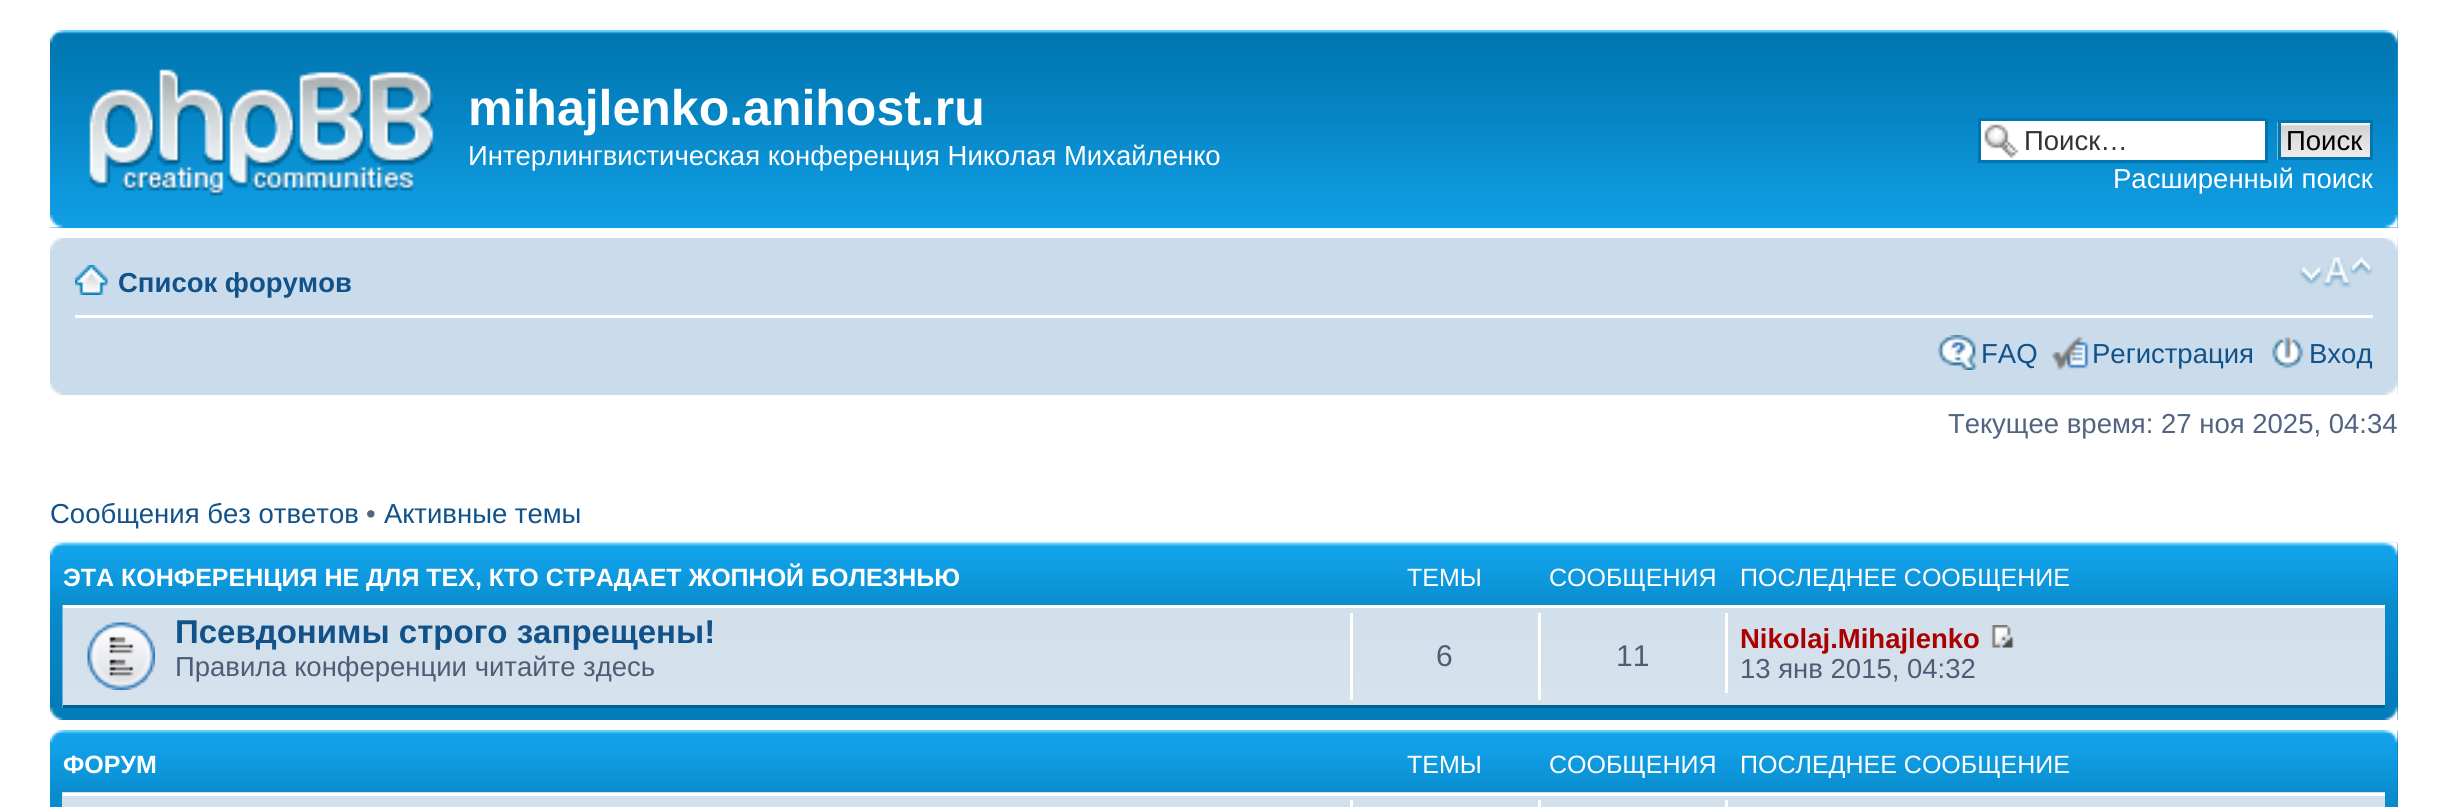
#include <cairo.h>
#include <math.h>
#include <stddef.h>

static cairo_t *ctx;

static void use_color(int r, int g, int b) {
    cairo_set_source_rgb(ctx, r / 255.0, g / 255.0, b / 255.0);
}

static void picture(const char *path, double x, double y, double w, double h) {
    cairo_surface_t *image = cairo_image_surface_create_from_png(path);
    cairo_save(ctx);
    cairo_set_source_surface(ctx, image, x, y);
    cairo_rectangle(ctx, x, y, w, h);
    cairo_fill(ctx);
    cairo_restore(ctx);
    cairo_surface_destroy(image);
}

int main(void) {
    cairo_surface_t *surface = cairo_image_surface_create(CAIRO_FORMAT_RGB24, 2447, 807);
    ctx = cairo_create(surface);
    cairo_font_options_t *options = cairo_font_options_create();
    cairo_font_options_set_hint_metrics(options, CAIRO_HINT_METRICS_OFF);
    cairo_font_options_set_hint_style(options, CAIRO_HINT_STYLE_NONE);
    cairo_set_font_options(ctx, options);
    cairo_set_miter_limit(ctx, 4);
    use_color(255, 255, 255);
    cairo_paint(ctx);
    use_color(18, 163, 235);
    cairo_rectangle(ctx, 50, 30, 2348, 198);
    cairo_fill(ctx);
    picture("img1.png", 50, 30, 2348, 197);
    picture("img2.png", 50, 30, 14, 13);
    picture("img3.png", 2384, 30, 14, 13);
    picture("img4.png", 89, 69, 345, 127);
    cairo_select_font_face(ctx, "Liberation Sans", CAIRO_FONT_SLANT_NORMAL, CAIRO_FONT_WEIGHT_BOLD);
    cairo_set_font_size(ctx, 50);
    use_color(255, 255, 255);
    cairo_move_to(ctx, 468, 125);
    cairo_show_text(ctx, "mihajlenko.anihost.ru");
    cairo_select_font_face(ctx, "Liberation Sans", CAIRO_FONT_SLANT_NORMAL, CAIRO_FONT_WEIGHT_NORMAL);
    cairo_set_font_size(ctx, 27.5);
    cairo_move_to(ctx, 468, 165);
    cairo_show_text(ctx, "Интерлингвистическая конференция Николая Михайленко");
    cairo_rectangle(ctx, 1981, 121, 284, 39);
    cairo_fill(ctx);
    picture("img5.png", 1984, 124, 35, 34);
    cairo_rectangle(ctx, 1979.5, 119.5, 287, 42);
    use_color(0, 117, 176);
    cairo_set_line_width(ctx, 3);
    cairo_stroke(ctx);
    use_color(51, 51, 51);
    cairo_move_to(ctx, 2024, 150);
    cairo_show_text(ctx, "Поиск…");
    picture("img6.png", 2277, 122, 93, 38);
    cairo_rectangle(ctx, 2279.5, 121.5, 92, 37);
    use_color(0, 117, 176);
    cairo_stroke(ctx);
    use_color(0, 0, 0);
    cairo_move_to(ctx, 2286, 150);
    cairo_show_text(ctx, "Поиск");
    use_color(255, 255, 255);
    cairo_move_to(ctx, 2113, 188);
    cairo_show_text(ctx, "Расширенный поиск");
    picture("img7.png", 50, 215, 14, 13);
    picture("img8.png", 2384, 215, 14, 13);
    use_color(202, 220, 235);
    cairo_rectangle(ctx, 50, 238, 2348, 157);
    cairo_fill(ctx);
    picture("img9.png", 50, 238, 13, 12);
    picture("img10.png", 2384, 238, 14, 12);
    use_color(255, 255, 255);
    cairo_rectangle(ctx, 75, 315, 2298, 3);
    cairo_fill(ctx);
    picture("img11.png", 75, 265, 33, 30);
    cairo_select_font_face(ctx, "Liberation Sans", CAIRO_FONT_SLANT_NORMAL, CAIRO_FONT_WEIGHT_BOLD);
    use_color(16, 82, 137);
    cairo_move_to(ctx, 118, 292);
    cairo_show_text(ctx, "Список форумов");
    picture("img12.png", 2300, 257, 73, 31);
    picture("img13.png", 1937, 335, 41, 35);
    cairo_select_font_face(ctx, "Liberation Sans", CAIRO_FONT_SLANT_NORMAL, CAIRO_FONT_WEIGHT_NORMAL);
    cairo_move_to(ctx, 1981, 363);
    cairo_show_text(ctx, "FAQ");
    picture("img14.png", 2051, 336, 38, 34);
    cairo_move_to(ctx, 2092, 363);
    cairo_show_text(ctx, "Регистрация");
    picture("img15.png", 2271, 337, 33, 32);
    cairo_move_to(ctx, 2309, 363);
    cairo_show_text(ctx, "Вход");
    picture("img16.png", 50, 382, 13, 13);
    picture("img17.png", 2385, 382, 13, 13);
    use_color(83, 100, 130);
    cairo_move_to(ctx, 1948, 433);
    cairo_show_text(ctx, "Текущее время: 27 ноя 2025, 04:34");
    use_color(16, 82, 137);
    cairo_move_to(ctx, 50, 523);
    cairo_show_text(ctx, "Сообщения без ответов");
    use_color(83, 100, 130);
    cairo_move_to(ctx, 366, 523);
    cairo_show_text(ctx, "•");
    use_color(16, 82, 137);
    cairo_move_to(ctx, 384, 523);
    cairo_show_text(ctx, "Активные темы");
    use_color(0, 118, 177);
    cairo_rectangle(ctx, 2397, 543, 1, 177);
    cairo_fill(ctx);
    picture("img18.png", 50, 542, 2348, 178);
    picture("img19.png", 50, 542, 14, 13);
    picture("img20.png", 2384, 542, 14, 13);
    cairo_select_font_face(ctx, "Liberation Sans", CAIRO_FONT_SLANT_NORMAL, CAIRO_FONT_WEIGHT_BOLD);
    cairo_set_font_size(ctx, 25);
    use_color(255, 255, 255);
    cairo_move_to(ctx, 63, 586);
    cairo_show_text(ctx, "ЭТА КОНФЕРЕНЦИЯ НЕ ДЛЯ ТЕХ, КТО СТРАДАЕТ ЖОПНОЙ БОЛЕЗНЬЮ");
    cairo_select_font_face(ctx, "Liberation Sans", CAIRO_FONT_SLANT_NORMAL, CAIRO_FONT_WEIGHT_NORMAL);
    cairo_move_to(ctx, 1407, 586);
    cairo_show_text(ctx, "ТЕМЫ");
    cairo_move_to(ctx, 1549, 586);
    cairo_show_text(ctx, "СООБЩЕНИЯ");
    cairo_move_to(ctx, 1740, 586);
    cairo_show_text(ctx, "ПОСЛЕДНЕЕ СООБЩЕНИЕ");
    picture("img21.png", 62, 605, 2323, 103);
    cairo_rectangle(ctx, 63, 605, 2322, 3);
    cairo_fill(ctx);
    use_color(0, 96, 143);
    cairo_rectangle(ctx, 63, 705, 2322, 3);
    cairo_fill(ctx);
    picture("img22.png", 87, 622, 68, 68);
    cairo_select_font_face(ctx, "Liberation Sans", CAIRO_FONT_SLANT_NORMAL, CAIRO_FONT_WEIGHT_BOLD);
    cairo_set_font_size(ctx, 33);
    use_color(16, 82, 137);
    cairo_move_to(ctx, 175, 643);
    cairo_show_text(ctx, "Псевдонимы строго запрещены!");
    cairo_select_font_face(ctx, "Liberation Sans", CAIRO_FONT_SLANT_NORMAL, CAIRO_FONT_WEIGHT_NORMAL);
    cairo_set_font_size(ctx, 27.5);
    use_color(76, 93, 119);
    cairo_move_to(ctx, 175, 676);
    cairo_show_text(ctx, "Правила конференции читайте здесь");
    use_color(255, 255, 255);
    cairo_rectangle(ctx, 1350, 613, 3, 87);
    cairo_fill(ctx);
    cairo_set_font_size(ctx, 30);
    use_color(76, 93, 119);
    cairo_move_to(ctx, 1436, 666);
    cairo_show_text(ctx, "6");
    use_color(255, 255, 255);
    cairo_rectangle(ctx, 1538, 613, 3, 87);
    cairo_fill(ctx);
    use_color(76, 93, 119);
    cairo_move_to(ctx, 1616, 666);
    cairo_show_text(ctx, "11");
    use_color(255, 255, 255);
    cairo_rectangle(ctx, 1725, 613, 3, 80);
    cairo_fill(ctx);
    cairo_select_font_face(ctx, "Liberation Sans", CAIRO_FONT_SLANT_NORMAL, CAIRO_FONT_WEIGHT_BOLD);
    cairo_set_font_size(ctx, 27.5);
    use_color(170, 0, 0);
    cairo_move_to(ctx, 1740, 648);
    cairo_show_text(ctx, "Nikolaj.Mihajlenko");
    picture("img23.png", 1991, 625, 23, 23);
    cairo_select_font_face(ctx, "Liberation Sans", CAIRO_FONT_SLANT_NORMAL, CAIRO_FONT_WEIGHT_NORMAL);
    use_color(76, 93, 119);
    cairo_move_to(ctx, 1740, 678);
    cairo_show_text(ctx, "13 янв 2015, 04:32");
    picture("img24.png", 50, 707, 14, 13);
    picture("img25.png", 2384, 707, 14, 13);
    use_color(0, 118, 177);
    cairo_rectangle(ctx, 2397, 730, 1, 77);
    cairo_fill(ctx);
    picture("img26.png", 50, 730, 2348, 77);
    picture("img27.png", 50, 730, 14, 13);
    picture("img28.png", 2384, 730, 14, 13);
    cairo_select_font_face(ctx, "Liberation Sans", CAIRO_FONT_SLANT_NORMAL, CAIRO_FONT_WEIGHT_BOLD);
    cairo_set_font_size(ctx, 25);
    use_color(255, 255, 255);
    cairo_move_to(ctx, 63, 773);
    cairo_show_text(ctx, "ФОРУМ");
    cairo_select_font_face(ctx, "Liberation Sans", CAIRO_FONT_SLANT_NORMAL, CAIRO_FONT_WEIGHT_NORMAL);
    cairo_move_to(ctx, 1407, 773);
    cairo_show_text(ctx, "ТЕМЫ");
    cairo_move_to(ctx, 1549, 773);
    cairo_show_text(ctx, "СООБЩЕНИЯ");
    cairo_move_to(ctx, 1740, 773);
    cairo_show_text(ctx, "ПОСЛЕДНЕЕ СООБЩЕНИЕ");
    use_color(210, 224, 235);
    cairo_rectangle(ctx, 62, 792, 2323, 15);
    cairo_fill(ctx);
    use_color(255, 255, 255);
    cairo_rectangle(ctx, 63, 793, 2322, 3);
    cairo_fill(ctx);
    cairo_rectangle(ctx, 1350, 800, 3, 7);
    cairo_fill(ctx);
    cairo_rectangle(ctx, 1538, 800, 3, 7);
    cairo_fill(ctx);
    cairo_rectangle(ctx, 1725, 800, 3, 7);
    cairo_fill(ctx);
    cairo_surface_write_to_png(surface, "result.png");
    cairo_font_options_destroy(options);
    cairo_destroy(ctx);
    cairo_surface_destroy(surface);
    return 0;
}
